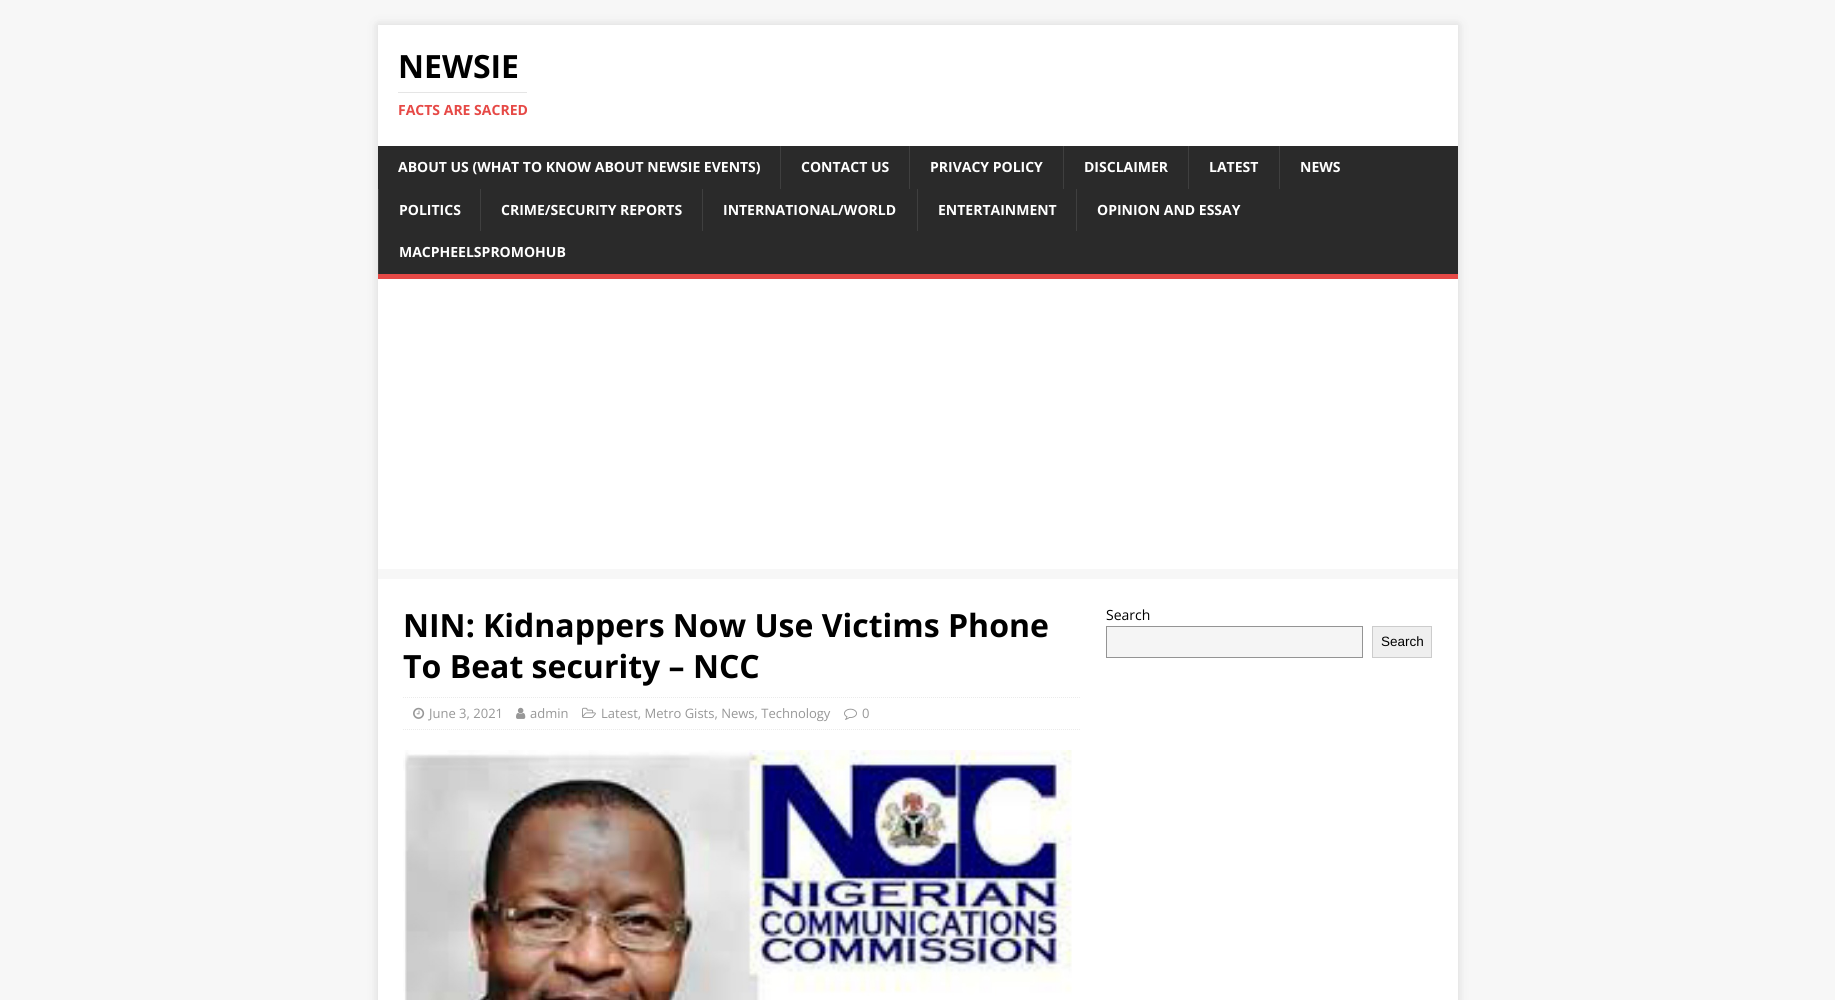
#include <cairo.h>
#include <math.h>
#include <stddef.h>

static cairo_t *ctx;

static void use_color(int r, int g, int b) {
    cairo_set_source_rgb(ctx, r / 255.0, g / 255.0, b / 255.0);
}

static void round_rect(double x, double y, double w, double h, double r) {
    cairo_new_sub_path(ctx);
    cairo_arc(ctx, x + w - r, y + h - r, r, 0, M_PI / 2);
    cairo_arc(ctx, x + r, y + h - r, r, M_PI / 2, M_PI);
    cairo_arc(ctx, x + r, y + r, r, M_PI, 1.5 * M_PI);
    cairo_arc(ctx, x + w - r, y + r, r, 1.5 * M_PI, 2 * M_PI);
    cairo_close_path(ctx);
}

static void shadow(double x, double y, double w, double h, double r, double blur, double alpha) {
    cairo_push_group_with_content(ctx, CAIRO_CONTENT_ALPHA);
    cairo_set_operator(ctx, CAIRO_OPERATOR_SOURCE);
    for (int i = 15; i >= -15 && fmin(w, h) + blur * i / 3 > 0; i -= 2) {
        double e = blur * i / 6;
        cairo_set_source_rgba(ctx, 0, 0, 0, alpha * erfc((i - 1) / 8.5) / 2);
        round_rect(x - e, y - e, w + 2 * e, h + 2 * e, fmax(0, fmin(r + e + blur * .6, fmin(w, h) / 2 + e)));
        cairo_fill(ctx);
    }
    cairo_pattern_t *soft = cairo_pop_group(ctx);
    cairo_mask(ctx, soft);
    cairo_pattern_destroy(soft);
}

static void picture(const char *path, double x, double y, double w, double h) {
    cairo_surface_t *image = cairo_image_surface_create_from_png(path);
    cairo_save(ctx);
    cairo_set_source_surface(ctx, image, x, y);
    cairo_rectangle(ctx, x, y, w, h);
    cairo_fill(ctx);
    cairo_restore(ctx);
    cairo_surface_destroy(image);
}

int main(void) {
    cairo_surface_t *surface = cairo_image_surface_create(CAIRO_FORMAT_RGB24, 1835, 1000);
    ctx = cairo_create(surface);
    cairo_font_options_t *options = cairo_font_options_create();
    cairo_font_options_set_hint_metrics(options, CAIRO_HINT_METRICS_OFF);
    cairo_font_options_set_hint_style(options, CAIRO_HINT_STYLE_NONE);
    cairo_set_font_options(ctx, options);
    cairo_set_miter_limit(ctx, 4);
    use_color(247, 247, 247);
    cairo_paint(ctx);
    cairo_save(ctx);
    cairo_set_fill_rule(ctx, CAIRO_FILL_RULE_EVEN_ODD);
    cairo_new_path(ctx);
    cairo_move_to(ctx, 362, 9);
    cairo_line_to(ctx, 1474, 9);
    cairo_line_to(ctx, 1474, 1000);
    cairo_line_to(ctx, 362, 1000);
    cairo_close_path(ctx);
    cairo_move_to(ctx, 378, 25);
    cairo_line_to(ctx, 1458, 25);
    cairo_line_to(ctx, 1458, 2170);
    cairo_line_to(ctx, 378, 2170);
    cairo_close_path(ctx);
    cairo_clip(ctx);
    use_color(50, 50, 50);
    shadow(378, 25, 1080, 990, 0, 5, 0.17);
    cairo_restore(ctx);
    use_color(255, 255, 255);
    cairo_rectangle(ctx, 378, 25, 1080, 544);
    cairo_fill(ctx);
    cairo_select_font_face(ctx, "Open Sans", CAIRO_FONT_SLANT_NORMAL, CAIRO_FONT_WEIGHT_BOLD);
    cairo_set_font_size(ctx, 32);
    use_color(0, 0, 0);
    cairo_move_to(ctx, 398, 78);
    cairo_show_text(ctx, "NEWSIE");
    use_color(229, 229, 229);
    cairo_rectangle(ctx, 398, 92, 129, 1);
    cairo_fill(ctx);
    cairo_set_font_size(ctx, 14);
    use_color(230, 73, 70);
    cairo_move_to(ctx, 398, 115);
    cairo_show_text(ctx, "FACTS ARE SACRED");
    use_color(42, 42, 42);
    cairo_rectangle(ctx, 378, 146, 1080, 128);
    cairo_fill(ctx);
    use_color(230, 73, 70);
    cairo_rectangle(ctx, 378, 274, 1080, 5);
    cairo_fill(ctx);
    use_color(255, 255, 255);
    cairo_move_to(ctx, 398, 172);
    cairo_show_text(ctx, "ABOUT US (WHAT TO KNOW ABOUT NEWSIE EVENTS)");
    use_color(63, 63, 63);
    cairo_rectangle(ctx, 780, 146, 1, 43);
    cairo_fill(ctx);
    use_color(255, 255, 255);
    cairo_move_to(ctx, 801, 172);
    cairo_show_text(ctx, "CONTACT US");
    use_color(63, 63, 63);
    cairo_rectangle(ctx, 909, 146, 1, 43);
    cairo_fill(ctx);
    use_color(255, 255, 255);
    cairo_move_to(ctx, 930, 172);
    cairo_show_text(ctx, "PRIVACY POLICY");
    use_color(63, 63, 63);
    cairo_rectangle(ctx, 1063, 146, 1, 43);
    cairo_fill(ctx);
    use_color(255, 255, 255);
    cairo_move_to(ctx, 1084, 172);
    cairo_show_text(ctx, "DISCLAIMER");
    use_color(63, 63, 63);
    cairo_rectangle(ctx, 1188, 146, 1, 43);
    cairo_fill(ctx);
    use_color(255, 255, 255);
    cairo_move_to(ctx, 1209, 172);
    cairo_show_text(ctx, "LATEST");
    use_color(63, 63, 63);
    cairo_rectangle(ctx, 1279, 146, 1, 43);
    cairo_fill(ctx);
    use_color(255, 255, 255);
    cairo_move_to(ctx, 1300, 172);
    cairo_show_text(ctx, "NEWS");
    use_color(63, 63, 63);
    cairo_rectangle(ctx, 378, 189, 1, 85);
    cairo_fill(ctx);
    use_color(255, 255, 255);
    cairo_move_to(ctx, 399, 215);
    cairo_show_text(ctx, "POLITICS");
    use_color(63, 63, 63);
    cairo_rectangle(ctx, 480, 189, 1, 42);
    cairo_fill(ctx);
    use_color(255, 255, 255);
    cairo_move_to(ctx, 501, 215);
    cairo_show_text(ctx, "CRIME/SECURITY REPORTS");
    use_color(63, 63, 63);
    cairo_rectangle(ctx, 702, 189, 1, 42);
    cairo_fill(ctx);
    use_color(255, 255, 255);
    cairo_move_to(ctx, 723, 215);
    cairo_show_text(ctx, "INTERNATIONAL/WORLD");
    use_color(63, 63, 63);
    cairo_rectangle(ctx, 917, 189, 1, 42);
    cairo_fill(ctx);
    use_color(255, 255, 255);
    cairo_move_to(ctx, 938, 215);
    cairo_show_text(ctx, "ENTERTAINMENT");
    use_color(63, 63, 63);
    cairo_rectangle(ctx, 1076, 189, 1, 42);
    cairo_fill(ctx);
    use_color(255, 255, 255);
    cairo_move_to(ctx, 1097, 215);
    cairo_show_text(ctx, "OPINION AND ESSAY");
    cairo_move_to(ctx, 399, 257);
    cairo_show_text(ctx, "MACPHEELSPROMOHUB");
    cairo_rectangle(ctx, 378, 579, 1080, 421);
    cairo_fill(ctx);
    cairo_set_font_size(ctx, 32);
    use_color(0, 0, 0);
    cairo_move_to(ctx, 403, 637);
    cairo_show_text(ctx, "NIN: Kidnappers Now Use Victims Phone");
    cairo_move_to(ctx, 403, 678);
    cairo_show_text(ctx, "To Beat security – NCC");
    cairo_new_path(ctx);
    cairo_move_to(ctx, 403, 697.5);
    cairo_line_to(ctx, 1081, 697.5);
    use_color(235, 235, 235);
    cairo_set_line_width(ctx, 1);
    cairo_set_dash(ctx, (double[]){1, 1}, 2, 0);
    cairo_stroke(ctx);
    cairo_new_path(ctx);
    cairo_move_to(ctx, 403, 729.5);
    cairo_line_to(ctx, 1081, 729.5);
    cairo_stroke(ctx);
    picture("img1.png", 413, 707, 12, 12);
    cairo_select_font_face(ctx, "Open Sans", CAIRO_FONT_SLANT_NORMAL, CAIRO_FONT_WEIGHT_NORMAL);
    cairo_set_font_size(ctx, 13);
    use_color(151, 151, 151);
    cairo_move_to(ctx, 429, 718);
    cairo_show_text(ctx, "June 3, 2021");
    picture("img2.png", 516, 707, 10, 12);
    cairo_move_to(ctx, 530, 718);
    cairo_show_text(ctx, "admin");
    picture("img3.png", 582, 707, 14, 11);
    cairo_move_to(ctx, 601, 718);
    cairo_show_text(ctx, "Latest, Metro Gists, News, Technology");
    picture("img4.png", 844, 708, 13, 12);
    cairo_move_to(ctx, 862, 718);
    cairo_show_text(ctx, "0");
    picture("img5.png", 403, 750, 669, 250);
    cairo_set_font_size(ctx, 14);
    use_color(0, 0, 0);
    cairo_move_to(ctx, 1106, 620);
    cairo_show_text(ctx, "Search");
    use_color(245, 245, 245);
    cairo_rectangle(ctx, 1106.5, 626.5, 256, 31);
    cairo_fill_preserve(ctx);
    use_color(148, 148, 148);
    cairo_set_dash(ctx, NULL, 0, 0);
    cairo_stroke(ctx);
    use_color(239, 239, 239);
    cairo_rectangle(ctx, 1372.5, 626.5, 59, 31);
    cairo_fill_preserve(ctx);
    use_color(204, 204, 204);
    cairo_stroke(ctx);
    cairo_select_font_face(ctx, "Liberation Sans", CAIRO_FONT_SLANT_NORMAL, CAIRO_FONT_WEIGHT_NORMAL);
    cairo_set_font_size(ctx, 13.5);
    use_color(0, 0, 0);
    cairo_move_to(ctx, 1381, 646);
    cairo_show_text(ctx, "Search");
    cairo_surface_write_to_png(surface, "result.png");
    cairo_font_options_destroy(options);
    cairo_destroy(ctx);
    cairo_surface_destroy(surface);
    return 0;
}
